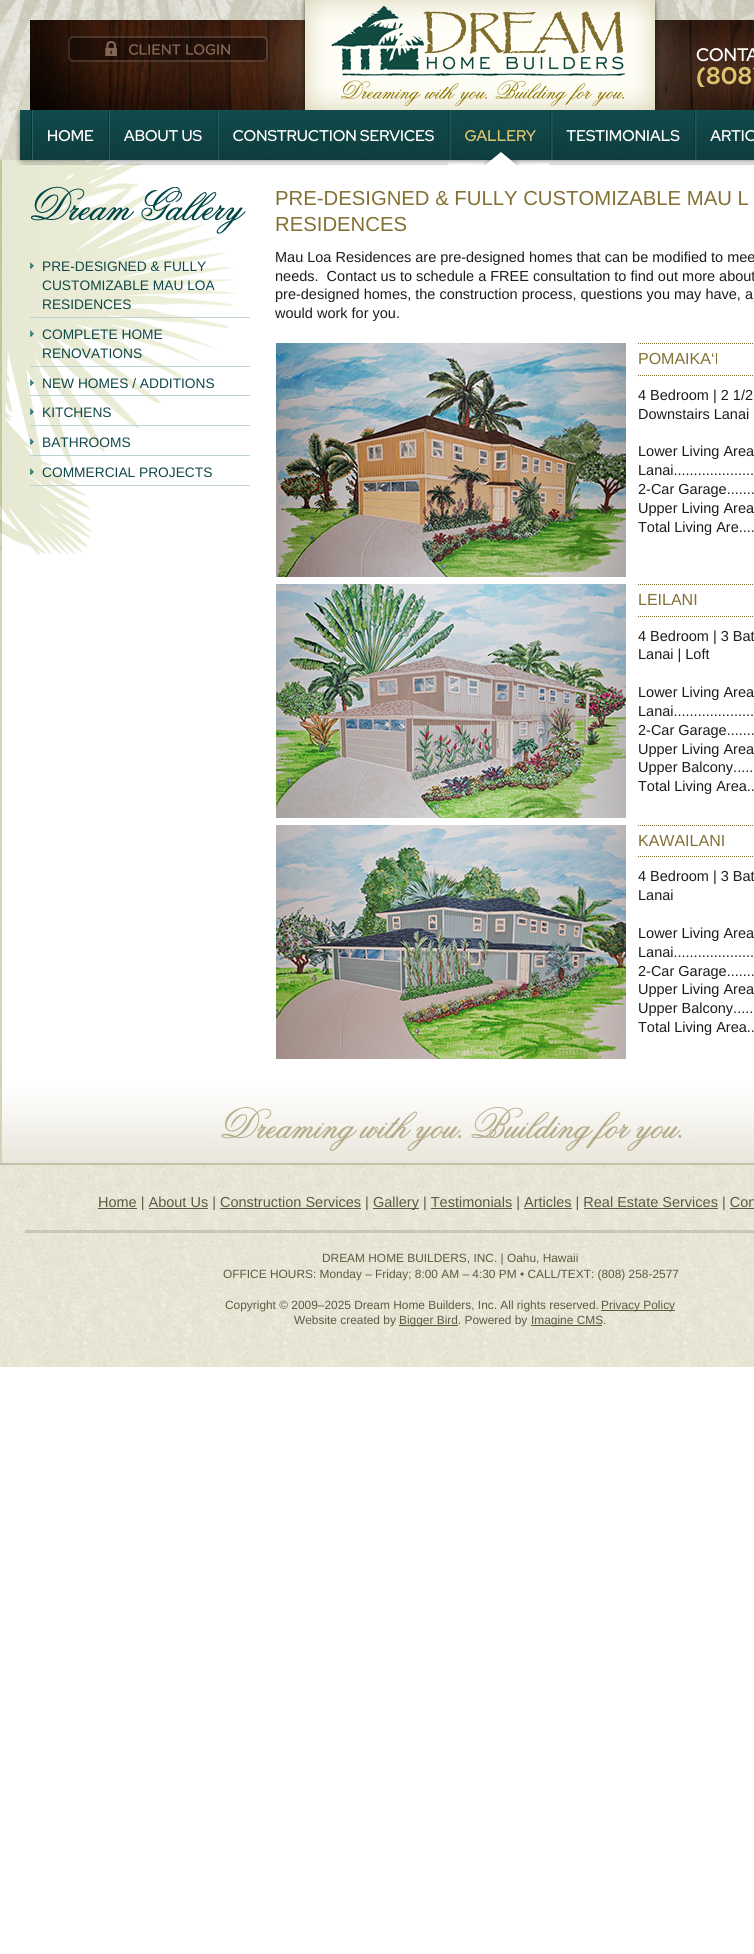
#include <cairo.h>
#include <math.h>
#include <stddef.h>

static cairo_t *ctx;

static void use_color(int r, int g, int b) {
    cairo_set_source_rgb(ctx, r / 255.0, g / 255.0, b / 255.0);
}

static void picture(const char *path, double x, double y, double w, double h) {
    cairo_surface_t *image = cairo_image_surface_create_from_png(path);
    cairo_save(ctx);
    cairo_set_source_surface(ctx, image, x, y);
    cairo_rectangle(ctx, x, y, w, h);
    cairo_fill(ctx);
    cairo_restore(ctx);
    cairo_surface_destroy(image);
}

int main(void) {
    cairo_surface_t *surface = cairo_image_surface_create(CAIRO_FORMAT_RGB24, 754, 1954);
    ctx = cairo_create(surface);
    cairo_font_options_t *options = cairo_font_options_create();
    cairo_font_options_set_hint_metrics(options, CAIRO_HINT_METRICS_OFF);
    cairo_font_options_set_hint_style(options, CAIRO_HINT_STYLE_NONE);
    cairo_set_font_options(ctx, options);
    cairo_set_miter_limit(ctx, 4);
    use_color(255, 255, 255);
    cairo_paint(ctx);
    picture("img1.png", 0, 0, 754, 1367);
    picture("img2.png", 0, 0, 754, 160);
    picture("img3.png", 0, 0, 754, 159);
    picture("img4.png", 30, 0, 724, 110);
    picture("img5.png", 68, 36, 200, 26);
    picture("img6.png", 696, 48, 58, 39);
    picture("img14.png", 0, 160, 754, 905);
    picture("img15.png", 0, 160, 237, 395);
    picture("img7.png", 15, 110, 13, 55);
    picture("img8.png", 28, 110, 78, 55);
    picture("img9.png", 106, 110, 110, 55);
    picture("img10.png", 216, 110, 232, 55);
    picture("img11.png", 448, 110, 102, 55);
    picture("img12.png", 550, 110, 144, 55);
    picture("img13.png", 694, 110, 60, 55);
    picture("img16.png", 31, 186, 215, 48);
    picture("img17.png", 30, 262, 4, 7);
    use_color(189, 211, 207);
    cairo_rectangle(ctx, 30, 317, 220, 1);
    cairo_fill(ctx);
    cairo_select_font_face(ctx, "Liberation Sans", CAIRO_FONT_SLANT_NORMAL, CAIRO_FONT_WEIGHT_NORMAL);
    cairo_set_font_size(ctx, 13.75);
    use_color(16, 72, 73);
    cairo_move_to(ctx, 42, 271);
    cairo_show_text(ctx, "PRE-DESIGNED & FULLY");
    cairo_move_to(ctx, 42, 290);
    cairo_show_text(ctx, "CUSTOMIZABLE MAU LOA");
    cairo_move_to(ctx, 42, 309);
    cairo_show_text(ctx, "RESIDENCES");
    picture("img17.png", 30, 330, 4, 7);
    use_color(189, 211, 207);
    cairo_rectangle(ctx, 30, 366, 220, 1);
    cairo_fill(ctx);
    use_color(16, 72, 73);
    cairo_move_to(ctx, 42, 339);
    cairo_show_text(ctx, "COMPLETE HOME");
    cairo_move_to(ctx, 42, 358);
    cairo_show_text(ctx, "RENOVATIONS");
    picture("img18.png", 30, 379, 4, 7);
    use_color(189, 211, 207);
    cairo_rectangle(ctx, 30, 395, 220, 1);
    cairo_fill(ctx);
    use_color(16, 72, 73);
    cairo_move_to(ctx, 42, 388);
    cairo_show_text(ctx, "NEW HOMES / ADDITIONS");
    picture("img19.png", 30, 408, 4, 7);
    use_color(189, 211, 207);
    cairo_rectangle(ctx, 30, 425, 220, 1);
    cairo_fill(ctx);
    use_color(16, 72, 73);
    cairo_move_to(ctx, 42, 417);
    cairo_show_text(ctx, "KITCHENS");
    picture("img20.png", 30, 438, 4, 7);
    use_color(189, 211, 207);
    cairo_rectangle(ctx, 30, 455, 220, 1);
    cairo_fill(ctx);
    use_color(16, 72, 73);
    cairo_move_to(ctx, 42, 447);
    cairo_show_text(ctx, "BATHROOMS");
    picture("img17.png", 30, 468, 4, 7);
    use_color(189, 211, 207);
    cairo_rectangle(ctx, 30, 485, 220, 1);
    cairo_fill(ctx);
    use_color(16, 72, 73);
    cairo_move_to(ctx, 42, 477);
    cairo_show_text(ctx, "COMMERCIAL PROJECTS");
    cairo_set_font_size(ctx, 20.3);
    use_color(131, 112, 53);
    cairo_move_to(ctx, 275, 205);
    cairo_show_text(ctx, "PRE-DESIGNED & FULLY CUSTOMIZABLE MAU L");
    cairo_move_to(ctx, 275, 231);
    cairo_show_text(ctx, "RESIDENCES");
    cairo_set_font_size(ctx, 14.5);
    use_color(28, 28, 28);
    cairo_move_to(ctx, 275, 262);
    cairo_show_text(ctx, "Mau Loa Residences are pre-designed homes that can be modified to mee");
    cairo_move_to(ctx, 275, 281);
    cairo_show_text(ctx, "needs.  Contact us to schedule a FREE consultation to find out more about");
    cairo_move_to(ctx, 275, 299);
    cairo_show_text(ctx, "pre-designed homes, the construction process, questions you may have, a");
    cairo_move_to(ctx, 275, 318);
    cairo_show_text(ctx, "would work for you.");
    picture("img21.png", 276, 343, 350, 234);
    cairo_new_path(ctx);
    cairo_move_to(ctx, 638, 343.5);
    cairo_line_to(ctx, 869, 343.5);
    use_color(131, 112, 53);
    cairo_set_line_width(ctx, 1);
    cairo_set_dash(ctx, (double[]){1, 1}, 2, 0);
    cairo_stroke(ctx);
    cairo_new_path(ctx);
    cairo_move_to(ctx, 638, 375.5);
    cairo_line_to(ctx, 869, 375.5);
    cairo_stroke(ctx);
    cairo_set_font_size(ctx, 16);
    cairo_move_to(ctx, 638, 364);
    cairo_show_text(ctx, "POMAIKA‘I");
    cairo_set_font_size(ctx, 14.5);
    use_color(28, 28, 28);
    cairo_move_to(ctx, 638, 400);
    cairo_show_text(ctx, "4 Bedroom | 2 1/2");
    cairo_move_to(ctx, 638, 419);
    cairo_show_text(ctx, "Downstairs Lanai");
    cairo_move_to(ctx, 638, 456);
    cairo_show_text(ctx, "Lower Living Area");
    cairo_move_to(ctx, 638, 475);
    cairo_show_text(ctx, "Lanai....................");
    cairo_move_to(ctx, 638, 494);
    cairo_show_text(ctx, "2-Car Garage.......");
    cairo_move_to(ctx, 638, 513);
    cairo_show_text(ctx, "Upper Living Area");
    cairo_move_to(ctx, 638, 532);
    cairo_show_text(ctx, "Total Living Are....");
    picture("img22.png", 276, 584, 350, 234);
    cairo_new_path(ctx);
    cairo_move_to(ctx, 638, 584.5);
    cairo_line_to(ctx, 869, 584.5);
    use_color(131, 112, 53);
    cairo_stroke(ctx);
    cairo_new_path(ctx);
    cairo_move_to(ctx, 638, 616.5);
    cairo_line_to(ctx, 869, 616.5);
    cairo_stroke(ctx);
    cairo_set_font_size(ctx, 16);
    cairo_move_to(ctx, 638, 605);
    cairo_show_text(ctx, "LEILANI");
    cairo_set_font_size(ctx, 14.5);
    use_color(28, 28, 28);
    cairo_move_to(ctx, 638, 641);
    cairo_show_text(ctx, "4 Bedroom | 3 Bat");
    cairo_move_to(ctx, 638, 659);
    cairo_show_text(ctx, "Lanai | Loft");
    cairo_move_to(ctx, 638, 697);
    cairo_show_text(ctx, "Lower Living Area");
    cairo_move_to(ctx, 638, 716);
    cairo_show_text(ctx, "Lanai....................");
    cairo_move_to(ctx, 638, 735);
    cairo_show_text(ctx, "2-Car Garage.......");
    cairo_move_to(ctx, 638, 754);
    cairo_show_text(ctx, "Upper Living Area");
    cairo_move_to(ctx, 638, 772);
    cairo_show_text(ctx, "Upper Balcony.....");
    cairo_move_to(ctx, 638, 791);
    cairo_show_text(ctx, "Total Living Area..");
    picture("img23.png", 276, 825, 350, 234);
    cairo_new_path(ctx);
    cairo_move_to(ctx, 638, 825.5);
    cairo_line_to(ctx, 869, 825.5);
    use_color(131, 112, 53);
    cairo_stroke(ctx);
    cairo_new_path(ctx);
    cairo_move_to(ctx, 638, 856.5);
    cairo_line_to(ctx, 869, 856.5);
    cairo_stroke(ctx);
    cairo_set_font_size(ctx, 16);
    cairo_move_to(ctx, 638, 846);
    cairo_show_text(ctx, "KAWAILANI");
    cairo_set_font_size(ctx, 14.5);
    use_color(28, 28, 28);
    cairo_move_to(ctx, 638, 881);
    cairo_show_text(ctx, "4 Bedroom | 3 Bat");
    cairo_move_to(ctx, 638, 900);
    cairo_show_text(ctx, "Lanai");
    cairo_move_to(ctx, 638, 938);
    cairo_show_text(ctx, "Lower Living Area");
    cairo_move_to(ctx, 638, 957);
    cairo_show_text(ctx, "Lanai....................");
    cairo_move_to(ctx, 638, 976);
    cairo_show_text(ctx, "2-Car Garage.......");
    cairo_move_to(ctx, 638, 994);
    cairo_show_text(ctx, "Upper Living Area");
    cairo_move_to(ctx, 638, 1013);
    cairo_show_text(ctx, "Upper Balcony.....");
    cairo_move_to(ctx, 638, 1032);
    cairo_show_text(ctx, "Total Living Area..");
    picture("img24.png", 0, 1065, 754, 100);
    use_color(93, 90, 68);
    cairo_rectangle(ctx, 98, 1208, 39, 1);
    cairo_fill(ctx);
    cairo_move_to(ctx, 98, 1207);
    cairo_show_text(ctx, "Home | About Us | Construction Services |");
    cairo_rectangle(ctx, 373, 1208, 46, 1);
    cairo_fill(ctx);
    cairo_move_to(ctx, 373, 1207);
    cairo_show_text(ctx, "Gallery | Testimonials | Articles | Real Estate Services | Con");
    cairo_rectangle(ctx, 149, 1208, 59, 1);
    cairo_fill(ctx);
    cairo_rectangle(ctx, 220, 1208, 141, 1);
    cairo_fill(ctx);
    cairo_rectangle(ctx, 431, 1208, 81, 1);
    cairo_fill(ctx);
    cairo_rectangle(ctx, 524, 1208, 48, 1);
    cairo_fill(ctx);
    cairo_rectangle(ctx, 584, 1208, 134, 1);
    cairo_fill(ctx);
    cairo_rectangle(ctx, 730, 1208, 24, 1);
    cairo_fill(ctx);
    picture("img25.png", 25, 1230, 729, 3);
    cairo_set_font_size(ctx, 11.9);
    cairo_move_to(ctx, 322, 1262);
    cairo_show_text(ctx, "DREAM HOME BUILDERS, INC. | Oahu, Hawaii");
    cairo_move_to(ctx, 223, 1278);
    cairo_show_text(ctx, "OFFICE HOURS: Monday – Friday; 8:00 AM – 4:30 PM • CALL/TEXT: (808) 258-2577");
    cairo_move_to(ctx, 225, 1309);
    cairo_show_text(ctx, "Copyright © 2009–2025 Dream Home Builders, Inc. All rights reserved.");
    cairo_rectangle(ctx, 601, 1310, 74, 1);
    cairo_fill(ctx);
    cairo_move_to(ctx, 601, 1309);
    cairo_show_text(ctx, "Privacy Policy");
    cairo_move_to(ctx, 294, 1324);
    cairo_show_text(ctx, "Website created by");
    cairo_rectangle(ctx, 399, 1325, 59, 1);
    cairo_fill(ctx);
    cairo_move_to(ctx, 399, 1324);
    cairo_show_text(ctx, "Bigger Bird. Powered by");
    cairo_rectangle(ctx, 531, 1325, 71, 1);
    cairo_fill(ctx);
    cairo_move_to(ctx, 531, 1324);
    cairo_show_text(ctx, "Imagine CMS.");
    cairo_surface_write_to_png(surface, "result.png");
    cairo_font_options_destroy(options);
    cairo_destroy(ctx);
    cairo_surface_destroy(surface);
    return 0;
}
